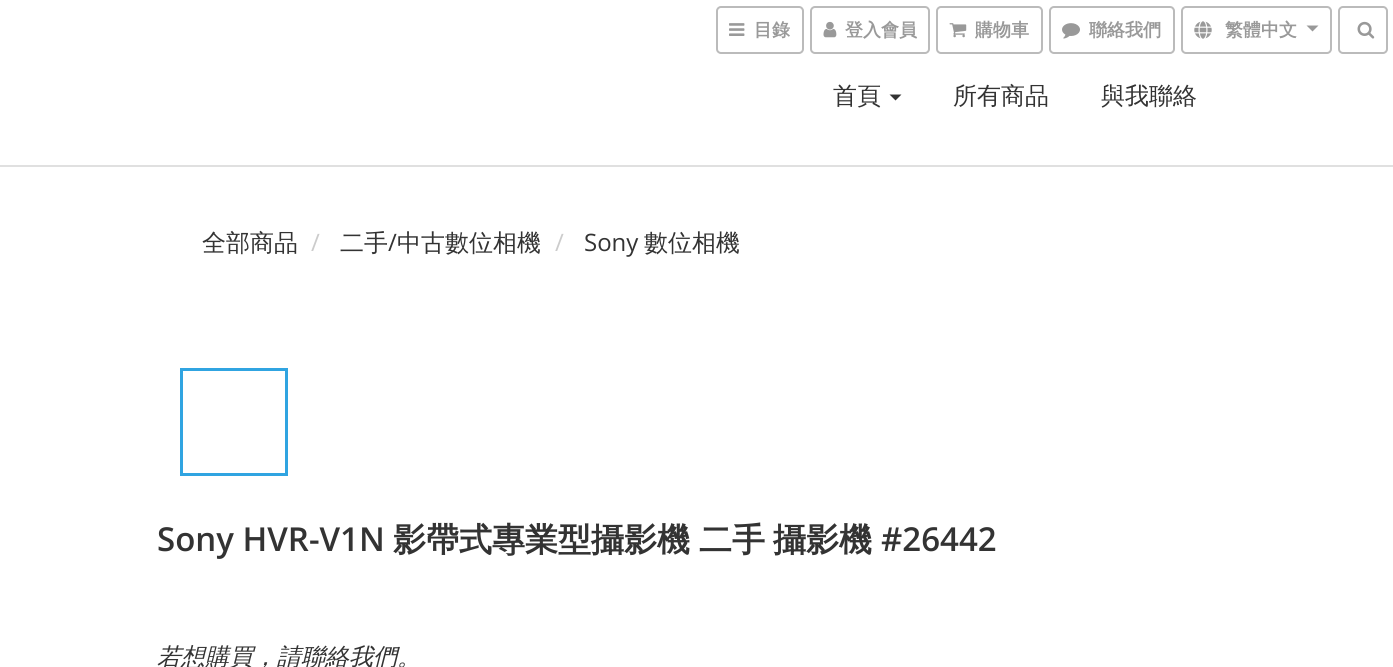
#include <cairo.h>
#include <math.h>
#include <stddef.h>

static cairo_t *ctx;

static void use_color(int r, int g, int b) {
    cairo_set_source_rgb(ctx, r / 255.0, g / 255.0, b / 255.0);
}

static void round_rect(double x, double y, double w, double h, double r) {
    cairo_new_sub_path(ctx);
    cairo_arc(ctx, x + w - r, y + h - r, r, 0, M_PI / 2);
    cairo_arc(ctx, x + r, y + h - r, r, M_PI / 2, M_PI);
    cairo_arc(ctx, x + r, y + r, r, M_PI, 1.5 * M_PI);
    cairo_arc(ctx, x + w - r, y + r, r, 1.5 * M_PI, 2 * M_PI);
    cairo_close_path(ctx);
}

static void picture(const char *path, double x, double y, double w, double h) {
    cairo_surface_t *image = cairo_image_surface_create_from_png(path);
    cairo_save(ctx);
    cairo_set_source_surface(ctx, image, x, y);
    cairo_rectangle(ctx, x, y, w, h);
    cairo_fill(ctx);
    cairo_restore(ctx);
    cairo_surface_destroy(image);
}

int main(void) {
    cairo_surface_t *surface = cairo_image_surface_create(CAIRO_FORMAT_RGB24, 1393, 667);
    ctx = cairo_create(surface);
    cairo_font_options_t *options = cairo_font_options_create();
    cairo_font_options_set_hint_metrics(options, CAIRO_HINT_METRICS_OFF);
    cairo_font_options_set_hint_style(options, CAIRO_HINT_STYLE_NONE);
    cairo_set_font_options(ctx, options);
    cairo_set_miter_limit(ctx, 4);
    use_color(255, 255, 255);
    cairo_paint(ctx);
    round_rect(717, 7, 86, 46, 4);
    use_color(187, 187, 187);
    cairo_stroke(ctx);
    picture("img1.png", 729, 23, 16, 13);
    cairo_select_font_face(ctx, "WenQuanYi Zen Hei", CAIRO_FONT_SLANT_NORMAL, CAIRO_FONT_WEIGHT_BOLD);
    cairo_set_font_size(ctx, 18);
    use_color(153, 153, 153);
    cairo_move_to(ctx, 754, 36);
    cairo_show_text(ctx, "目錄");
    round_rect(811, 7, 118, 46, 4);
    use_color(187, 187, 187);
    cairo_stroke(ctx);
    picture("img2.png", 823, 21, 14, 17);
    use_color(153, 153, 153);
    cairo_move_to(ctx, 845, 36);
    cairo_show_text(ctx, "登入會員");
    round_rect(937, 7, 105, 46, 4);
    use_color(187, 187, 187);
    cairo_stroke(ctx);
    picture("img3.png", 949, 23, 18, 15);
    use_color(153, 153, 153);
    cairo_move_to(ctx, 975, 36);
    cairo_show_text(ctx, "購物車");
    round_rect(1050, 7, 124, 46, 4);
    use_color(187, 187, 187);
    cairo_stroke(ctx);
    picture("img4.png", 1062, 23, 18, 16);
    use_color(153, 153, 153);
    cairo_move_to(ctx, 1089, 36);
    cairo_show_text(ctx, "聯絡我們");
    round_rect(1182, 7, 149, 46, 4);
    use_color(187, 187, 187);
    cairo_stroke(ctx);
    picture("img5.png", 1194, 21, 18, 18);
    use_color(153, 153, 153);
    cairo_move_to(ctx, 1225, 36);
    cairo_show_text(ctx, "繁體中文");
    cairo_new_path(ctx);
    cairo_move_to(ctx, 1306.5, 25.5);
    cairo_line_to(ctx, 1318.5, 25.5);
    cairo_line_to(ctx, 1312.5, 31.5);
    cairo_close_path(ctx);
    cairo_fill(ctx);
    round_rect(1339, 7, 48, 46, 4);
    use_color(187, 187, 187);
    cairo_stroke(ctx);
    picture("img6.png", 1357, 21, 18, 18);
    use_color(224, 224, 224);
    cairo_rectangle(ctx, 0, 165, 1393, 2);
    cairo_fill(ctx);
    cairo_select_font_face(ctx, "WenQuanYi Zen Hei Medium", CAIRO_FONT_SLANT_NORMAL, CAIRO_FONT_WEIGHT_NORMAL);
    cairo_set_font_size(ctx, 24);
    use_color(51, 51, 51);
    cairo_move_to(ctx, 833, 104);
    cairo_show_text(ctx, "首頁");
    cairo_new_path(ctx);
    cairo_move_to(ctx, 889.5, 94.5);
    cairo_line_to(ctx, 901.5, 94.5);
    cairo_line_to(ctx, 895.5, 100.5);
    cairo_close_path(ctx);
    cairo_fill(ctx);
    cairo_move_to(ctx, 953, 104);
    cairo_show_text(ctx, "所有商品");
    cairo_move_to(ctx, 1101, 104);
    cairo_show_text(ctx, "與我聯絡");
    cairo_move_to(ctx, 202, 251);
    cairo_show_text(ctx, "全部商品");
    cairo_select_font_face(ctx, "Open Sans", CAIRO_FONT_SLANT_NORMAL, CAIRO_FONT_WEIGHT_NORMAL);
    use_color(204, 204, 204);
    cairo_move_to(ctx, 311, 251);
    cairo_show_text(ctx, "/");
    cairo_select_font_face(ctx, "WenQuanYi Zen Hei Medium", CAIRO_FONT_SLANT_NORMAL, CAIRO_FONT_WEIGHT_NORMAL);
    use_color(51, 51, 51);
    cairo_move_to(ctx, 340, 251);
    cairo_show_text(ctx, "二手");
    cairo_select_font_face(ctx, "Open Sans", CAIRO_FONT_SLANT_NORMAL, CAIRO_FONT_WEIGHT_NORMAL);
    cairo_move_to(ctx, 388, 251);
    cairo_show_text(ctx, "/");
    cairo_select_font_face(ctx, "WenQuanYi Zen Hei Medium", CAIRO_FONT_SLANT_NORMAL, CAIRO_FONT_WEIGHT_NORMAL);
    cairo_move_to(ctx, 397, 251);
    cairo_show_text(ctx, "中古數位相機");
    cairo_select_font_face(ctx, "Open Sans", CAIRO_FONT_SLANT_NORMAL, CAIRO_FONT_WEIGHT_NORMAL);
    use_color(204, 204, 204);
    cairo_move_to(ctx, 555, 251);
    cairo_show_text(ctx, "/");
    use_color(51, 51, 51);
    cairo_move_to(ctx, 584, 251);
    cairo_show_text(ctx, "Sony");
    cairo_select_font_face(ctx, "WenQuanYi Zen Hei Medium", CAIRO_FONT_SLANT_NORMAL, CAIRO_FONT_WEIGHT_NORMAL);
    cairo_move_to(ctx, 644, 251);
    cairo_show_text(ctx, "數位相機");
    cairo_rectangle(ctx, 181.5, 369.5, 105, 105);
    use_color(48, 164, 225);
    cairo_set_line_width(ctx, 3);
    cairo_stroke(ctx);
    cairo_select_font_face(ctx, "Open Sans SemiBold", CAIRO_FONT_SLANT_NORMAL, CAIRO_FONT_WEIGHT_NORMAL);
    cairo_set_font_size(ctx, 33);
    use_color(51, 51, 51);
    cairo_move_to(ctx, 157, 551);
    cairo_show_text(ctx, "Sony HVR-V1N");
    cairo_select_font_face(ctx, "WenQuanYi Zen Hei", CAIRO_FONT_SLANT_NORMAL, CAIRO_FONT_WEIGHT_BOLD);
    cairo_move_to(ctx, 393, 551);
    cairo_show_text(ctx, "影帶式專業型攝影機");
    cairo_move_to(ctx, 699, 551);
    cairo_show_text(ctx, "二手");
    cairo_move_to(ctx, 773, 551);
    cairo_show_text(ctx, "攝影機");
    cairo_select_font_face(ctx, "Open Sans SemiBold", CAIRO_FONT_SLANT_NORMAL, CAIRO_FONT_WEIGHT_NORMAL);
    cairo_move_to(ctx, 881, 551);
    cairo_show_text(ctx, "#26442");
    cairo_select_font_face(ctx, "WenQuanYi Zen Hei Medium", CAIRO_FONT_SLANT_ITALIC, CAIRO_FONT_WEIGHT_NORMAL);
    cairo_set_font_size(ctx, 24);
    cairo_move_to(ctx, 157, 665);
    cairo_show_text(ctx, "若想購買，請聯絡我們。");
    cairo_surface_write_to_png(surface, "result.png");
    cairo_font_options_destroy(options);
    cairo_destroy(ctx);
    cairo_surface_destroy(surface);
    return 0;
}
